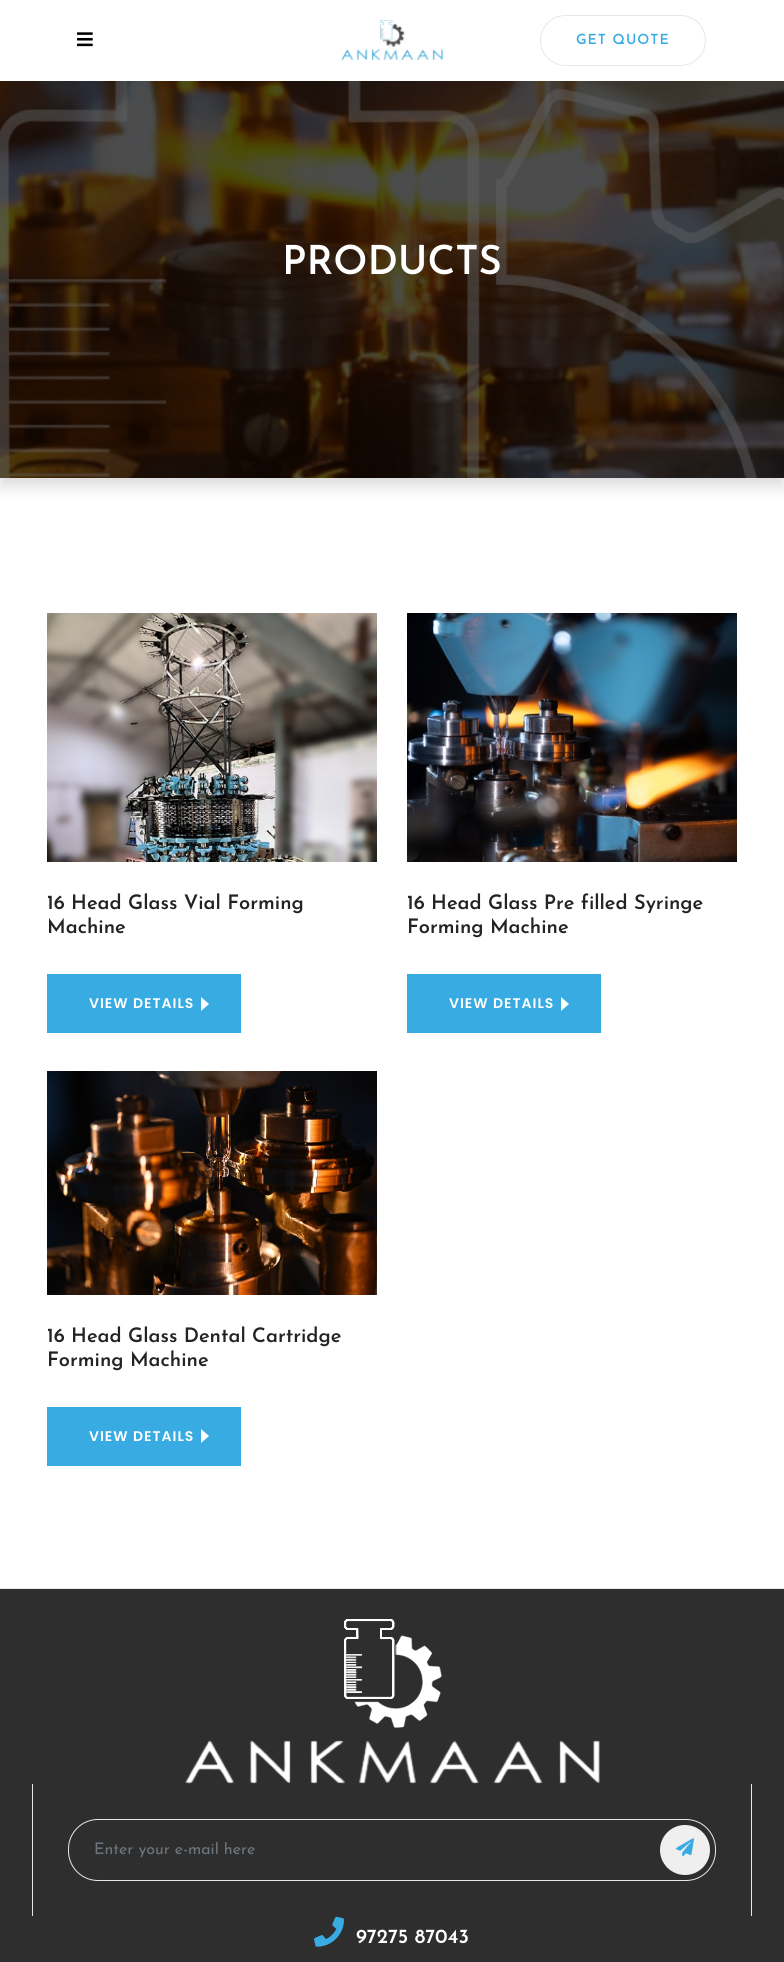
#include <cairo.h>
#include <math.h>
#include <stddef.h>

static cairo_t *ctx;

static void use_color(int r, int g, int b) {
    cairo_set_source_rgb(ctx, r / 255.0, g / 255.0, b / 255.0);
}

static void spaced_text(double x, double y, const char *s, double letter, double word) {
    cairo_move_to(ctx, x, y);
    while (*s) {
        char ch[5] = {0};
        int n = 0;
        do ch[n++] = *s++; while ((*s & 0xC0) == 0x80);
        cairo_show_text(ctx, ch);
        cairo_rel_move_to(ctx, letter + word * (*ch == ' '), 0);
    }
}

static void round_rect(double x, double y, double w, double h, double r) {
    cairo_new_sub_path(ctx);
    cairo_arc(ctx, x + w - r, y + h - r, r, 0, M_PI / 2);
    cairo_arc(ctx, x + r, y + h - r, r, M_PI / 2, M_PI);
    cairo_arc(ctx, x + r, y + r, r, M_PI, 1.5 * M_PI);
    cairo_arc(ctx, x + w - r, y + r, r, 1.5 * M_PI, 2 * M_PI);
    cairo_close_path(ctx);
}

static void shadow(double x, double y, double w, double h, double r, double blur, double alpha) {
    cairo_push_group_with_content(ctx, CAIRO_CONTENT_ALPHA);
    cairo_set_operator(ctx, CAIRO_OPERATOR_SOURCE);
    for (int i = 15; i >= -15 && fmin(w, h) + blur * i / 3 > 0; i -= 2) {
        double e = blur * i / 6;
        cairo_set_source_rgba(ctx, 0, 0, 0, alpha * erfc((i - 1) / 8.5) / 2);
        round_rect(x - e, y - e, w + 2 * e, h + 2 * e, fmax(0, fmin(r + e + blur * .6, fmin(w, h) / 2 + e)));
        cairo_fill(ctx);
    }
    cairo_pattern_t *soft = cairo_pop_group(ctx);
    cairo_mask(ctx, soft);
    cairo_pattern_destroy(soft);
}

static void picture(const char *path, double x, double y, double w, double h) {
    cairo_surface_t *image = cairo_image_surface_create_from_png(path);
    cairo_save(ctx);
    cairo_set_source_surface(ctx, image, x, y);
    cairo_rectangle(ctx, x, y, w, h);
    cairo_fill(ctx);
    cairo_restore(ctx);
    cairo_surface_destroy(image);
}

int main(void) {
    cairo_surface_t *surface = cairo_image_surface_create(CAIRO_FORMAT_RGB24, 784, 1962);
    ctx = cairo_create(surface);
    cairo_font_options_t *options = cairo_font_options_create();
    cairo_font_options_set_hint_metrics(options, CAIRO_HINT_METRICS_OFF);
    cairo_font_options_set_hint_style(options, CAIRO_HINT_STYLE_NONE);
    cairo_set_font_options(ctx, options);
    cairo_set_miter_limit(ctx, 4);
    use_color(255, 255, 255);
    cairo_paint(ctx);
    use_color(0, 0, 0);
    shadow(0, 8, 784, 478, 0, 8, 0.15);
    use_color(255, 255, 255);
    cairo_rectangle(ctx, 0, 0, 784, 81);
    cairo_fill(ctx);
    picture("img1.png", 77, 32, 16, 15);
    picture("img2.png", 341, 20, 102, 40);
    round_rect(540.5, 15.5, 165, 50, 25);
    use_color(231, 231, 231);
    cairo_set_line_width(ctx, 1);
    cairo_stroke(ctx);
    cairo_select_font_face(ctx, "Josefin Sans SemiBold", CAIRO_FONT_SLANT_NORMAL, CAIRO_FONT_WEIGHT_NORMAL);
    cairo_set_font_size(ctx, 14);
    use_color(56, 171, 226);
    spaced_text(576, 44, "GET QUOTE", 1, 0);
    picture("img3.png", 0, 81, 784, 397);
    cairo_set_font_size(ctx, 40);
    use_color(255, 255, 255);
    cairo_move_to(ctx, 282, 274);
    cairo_show_text(ctx, "PRODUCTS");
    picture("img4.png", 47, 613, 330, 249);
    cairo_set_font_size(ctx, 20);
    use_color(35, 35, 35);
    cairo_move_to(ctx, 47, 909);
    cairo_show_text(ctx, "16 Head Glass Vial Forming");
    cairo_move_to(ctx, 47, 933);
    cairo_show_text(ctx, "Machine");
    use_color(56, 171, 226);
    cairo_rectangle(ctx, 47, 974, 194, 59);
    cairo_fill(ctx);
    cairo_select_font_face(ctx, "Poppins SemiBold", CAIRO_FONT_SLANT_NORMAL, CAIRO_FONT_WEIGHT_NORMAL);
    cairo_set_font_size(ctx, 14);
    use_color(255, 255, 255);
    spaced_text(89, 1008, "VIEW DETAILS", 1, 0);
    cairo_new_path(ctx);
    cairo_move_to(ctx, 201, 1011);
    cairo_line_to(ctx, 201, 997);
    cairo_line_to(ctx, 209, 1004);
    cairo_close_path(ctx);
    cairo_fill(ctx);
    picture("img5.png", 407, 613, 330, 249);
    cairo_select_font_face(ctx, "Josefin Sans SemiBold", CAIRO_FONT_SLANT_NORMAL, CAIRO_FONT_WEIGHT_NORMAL);
    cairo_set_font_size(ctx, 20);
    use_color(35, 35, 35);
    cairo_move_to(ctx, 407, 909);
    cairo_show_text(ctx, "16 Head Glass Pre filled Syringe");
    cairo_move_to(ctx, 407, 933);
    cairo_show_text(ctx, "Forming Machine");
    use_color(56, 171, 226);
    cairo_rectangle(ctx, 407, 974, 194, 59);
    cairo_fill(ctx);
    cairo_select_font_face(ctx, "Poppins SemiBold", CAIRO_FONT_SLANT_NORMAL, CAIRO_FONT_WEIGHT_NORMAL);
    cairo_set_font_size(ctx, 14);
    use_color(255, 255, 255);
    spaced_text(449, 1008, "VIEW DETAILS", 1, 0);
    cairo_new_path(ctx);
    cairo_move_to(ctx, 561, 1011);
    cairo_line_to(ctx, 561, 997);
    cairo_line_to(ctx, 569, 1004);
    cairo_close_path(ctx);
    cairo_fill(ctx);
    picture("img6.png", 47, 1071, 330, 224);
    cairo_select_font_face(ctx, "Josefin Sans SemiBold", CAIRO_FONT_SLANT_NORMAL, CAIRO_FONT_WEIGHT_NORMAL);
    cairo_set_font_size(ctx, 20);
    use_color(35, 35, 35);
    cairo_move_to(ctx, 47, 1342);
    cairo_show_text(ctx, "16 Head Glass Dental Cartridge");
    cairo_move_to(ctx, 47, 1366);
    cairo_show_text(ctx, "Forming Machine");
    use_color(56, 171, 226);
    cairo_rectangle(ctx, 47, 1407, 194, 59);
    cairo_fill(ctx);
    cairo_select_font_face(ctx, "Poppins SemiBold", CAIRO_FONT_SLANT_NORMAL, CAIRO_FONT_WEIGHT_NORMAL);
    cairo_set_font_size(ctx, 14);
    use_color(255, 255, 255);
    spaced_text(89, 1441, "VIEW DETAILS", 1, 0);
    cairo_new_path(ctx);
    cairo_move_to(ctx, 201, 1443);
    cairo_line_to(ctx, 201, 1429);
    cairo_line_to(ctx, 209, 1436);
    cairo_close_path(ctx);
    cairo_fill(ctx);
    use_color(46, 46, 46);
    cairo_rectangle(ctx, 0, 1589, 784, 373);
    cairo_fill(ctx);
    use_color(231, 231, 231);
    cairo_rectangle(ctx, 0, 1588, 784, 1);
    cairo_fill(ctx);
    picture("img7.png", 185, 1619, 415, 165);
    cairo_rectangle(ctx, 751, 1784, 1, 132);
    cairo_fill(ctx);
    cairo_rectangle(ctx, 32, 1784, 1, 132);
    cairo_fill(ctx);
    round_rect(68.5, 1819.5, 647, 61, 29.5);
    cairo_stroke(ctx);
    cairo_save(ctx);
    cairo_rectangle(ctx, 94, 1842, 609, 16);
    cairo_clip(ctx);
    cairo_select_font_face(ctx, "Josefin Sans", CAIRO_FONT_SLANT_NORMAL, CAIRO_FONT_WEIGHT_NORMAL);
    cairo_set_font_size(ctx, 16);
    use_color(108, 117, 125);
    cairo_move_to(ctx, 94, 1854);
    cairo_show_text(ctx, "Enter your e-mail here");
    cairo_restore(ctx);
    use_color(239, 239, 239);
    cairo_new_path(ctx);
    cairo_arc(ctx, 685, 1850, 25, 0, 2 * M_PI);
    cairo_fill(ctx);
    picture("img8.png", 676, 1838, 18, 19);
    picture("img9.png", 314, 1916, 30, 31);
    cairo_select_font_face(ctx, "Josefin Sans SemiBold", CAIRO_FONT_SLANT_NORMAL, CAIRO_FONT_WEIGHT_NORMAL);
    cairo_set_font_size(ctx, 20);
    use_color(255, 255, 255);
    cairo_move_to(ctx, 356, 1943);
    cairo_show_text(ctx, "97275 87043");
    cairo_surface_write_to_png(surface, "result.png");
    cairo_font_options_destroy(options);
    cairo_destroy(ctx);
    cairo_surface_destroy(surface);
    return 0;
}
